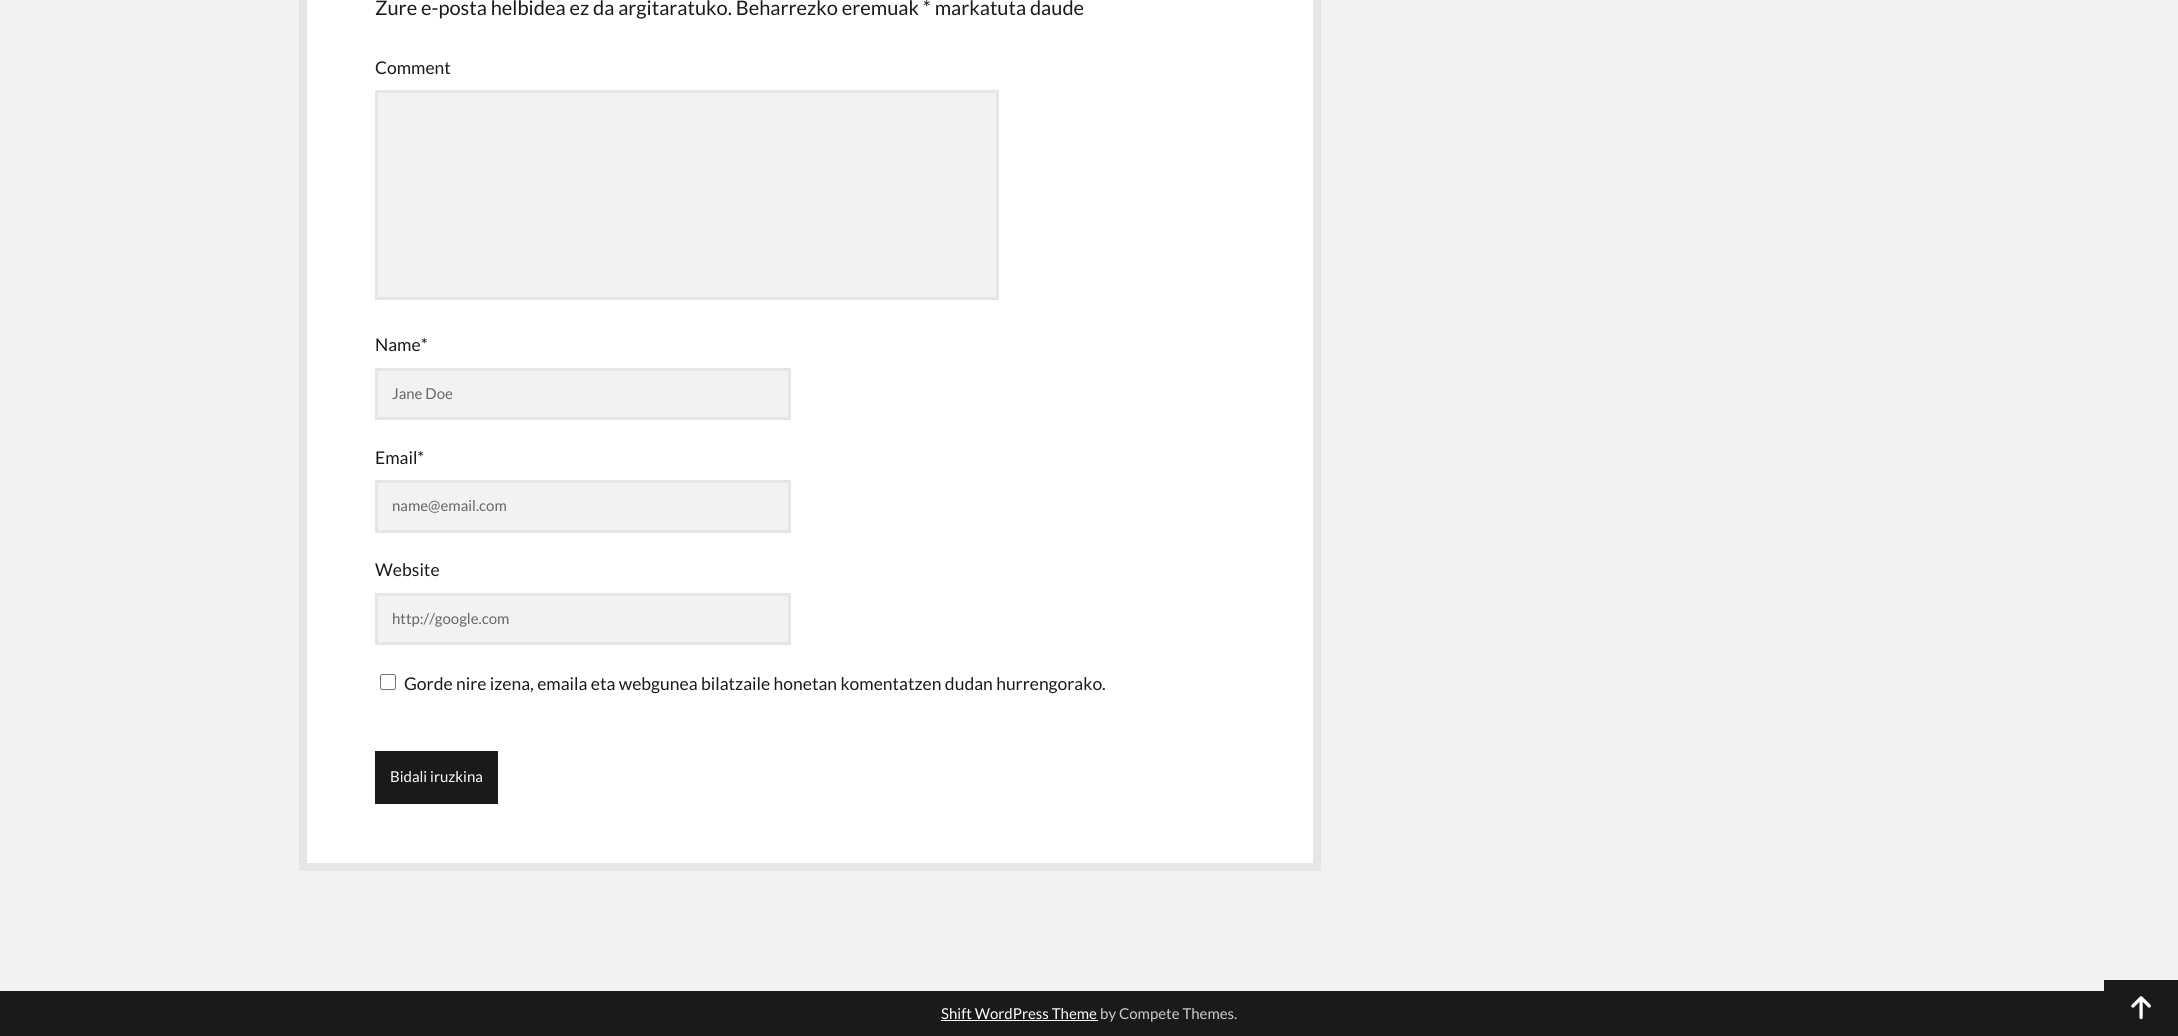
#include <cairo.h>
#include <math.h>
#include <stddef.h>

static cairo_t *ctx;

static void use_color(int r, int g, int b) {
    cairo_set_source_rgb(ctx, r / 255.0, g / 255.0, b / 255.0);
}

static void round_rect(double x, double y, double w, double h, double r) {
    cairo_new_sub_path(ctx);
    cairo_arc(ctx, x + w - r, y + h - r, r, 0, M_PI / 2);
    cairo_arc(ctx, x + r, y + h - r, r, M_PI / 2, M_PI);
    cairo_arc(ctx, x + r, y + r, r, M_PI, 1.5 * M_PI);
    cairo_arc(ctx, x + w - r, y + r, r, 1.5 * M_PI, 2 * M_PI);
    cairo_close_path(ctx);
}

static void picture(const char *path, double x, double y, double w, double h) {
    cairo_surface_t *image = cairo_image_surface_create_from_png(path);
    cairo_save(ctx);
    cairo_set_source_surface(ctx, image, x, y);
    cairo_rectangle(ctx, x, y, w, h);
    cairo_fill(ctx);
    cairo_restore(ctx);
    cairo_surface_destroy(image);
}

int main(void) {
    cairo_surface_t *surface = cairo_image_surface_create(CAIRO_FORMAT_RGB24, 2178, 1036);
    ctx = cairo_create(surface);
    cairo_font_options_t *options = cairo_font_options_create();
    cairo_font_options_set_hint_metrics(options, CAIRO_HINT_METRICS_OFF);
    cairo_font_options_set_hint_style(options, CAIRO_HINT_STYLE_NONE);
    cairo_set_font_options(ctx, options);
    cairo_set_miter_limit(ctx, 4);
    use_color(242, 242, 242);
    cairo_paint(ctx);
    use_color(255, 255, 255);
    cairo_rectangle(ctx, 303, -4, 1014, 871);
    cairo_fill_preserve(ctx);
    use_color(230, 230, 230);
    cairo_set_line_width(ctx, 8);
    cairo_stroke(ctx);
    cairo_select_font_face(ctx, "Lato", CAIRO_FONT_SLANT_NORMAL, CAIRO_FONT_WEIGHT_NORMAL);
    cairo_set_font_size(ctx, 20);
    use_color(26, 26, 26);
    cairo_move_to(ctx, 375, 15);
    cairo_show_text(ctx, "Zure e-posta helbidea ez da argitaratuko. Beharrezko eremuak * markatuta daude");
    cairo_set_font_size(ctx, 17.5);
    cairo_move_to(ctx, 375, 74);
    cairo_show_text(ctx, "Comment");
    use_color(242, 242, 242);
    cairo_rectangle(ctx, 376.5, 91.5, 621, 207);
    cairo_fill_preserve(ctx);
    use_color(230, 230, 230);
    cairo_set_line_width(ctx, 3);
    cairo_stroke(ctx);
    use_color(26, 26, 26);
    cairo_move_to(ctx, 375, 351);
    cairo_show_text(ctx, "Name*");
    use_color(242, 242, 242);
    cairo_rectangle(ctx, 376.5, 369.5, 413, 49);
    cairo_fill_preserve(ctx);
    use_color(230, 230, 230);
    cairo_stroke(ctx);
    cairo_set_font_size(ctx, 15);
    use_color(102, 102, 102);
    cairo_move_to(ctx, 392, 399);
    cairo_show_text(ctx, "Jane Doe");
    cairo_set_font_size(ctx, 17.5);
    use_color(26, 26, 26);
    cairo_move_to(ctx, 375, 464);
    cairo_show_text(ctx, "Email*");
    use_color(242, 242, 242);
    cairo_rectangle(ctx, 376.5, 481.5, 413, 50);
    cairo_fill_preserve(ctx);
    use_color(230, 230, 230);
    cairo_stroke(ctx);
    cairo_set_font_size(ctx, 15);
    use_color(102, 102, 102);
    cairo_move_to(ctx, 392, 511);
    cairo_show_text(ctx, "name@email.com");
    cairo_set_font_size(ctx, 17.5);
    use_color(26, 26, 26);
    cairo_move_to(ctx, 375, 576);
    cairo_show_text(ctx, "Website");
    use_color(242, 242, 242);
    cairo_rectangle(ctx, 376.5, 594.5, 413, 49);
    cairo_fill_preserve(ctx);
    use_color(230, 230, 230);
    cairo_stroke(ctx);
    cairo_set_font_size(ctx, 15);
    use_color(102, 102, 102);
    cairo_move_to(ctx, 392, 624);
    cairo_show_text(ctx, "http://google.com");
    round_rect(380.5, 674.5, 15, 15, 2);
    use_color(118, 118, 118);
    cairo_set_line_width(ctx, 1);
    cairo_stroke(ctx);
    cairo_set_font_size(ctx, 17.5);
    use_color(26, 26, 26);
    cairo_move_to(ctx, 404, 690);
    cairo_show_text(ctx, "Gorde nire izena, emaila eta webgunea bilatzaile honetan komentatzen dudan hurrengorako.");
    cairo_rectangle(ctx, 375, 751, 123, 53);
    cairo_fill(ctx);
    cairo_set_font_size(ctx, 15);
    use_color(255, 255, 255);
    cairo_move_to(ctx, 390, 782);
    cairo_show_text(ctx, "Bidali iruzkina");
    use_color(26, 26, 26);
    cairo_rectangle(ctx, 0, 991, 2104, 45);
    cairo_fill(ctx);
    use_color(255, 255, 255);
    cairo_move_to(ctx, 941, 1019);
    cairo_show_text(ctx, "Shift WordPress Theme");
    cairo_rectangle(ctx, 941, 1020, 157, 1);
    cairo_fill(ctx);
    use_color(204, 204, 204);
    cairo_move_to(ctx, 1100, 1019);
    cairo_show_text(ctx, "by Compete Themes.");
    use_color(26, 26, 26);
    cairo_rectangle(ctx, 2104, 980, 74, 56);
    cairo_fill(ctx);
    picture("img1.png", 2131, 996, 20, 24);
    cairo_surface_write_to_png(surface, "result.png");
    cairo_font_options_destroy(options);
    cairo_destroy(ctx);
    cairo_surface_destroy(surface);
    return 0;
}
